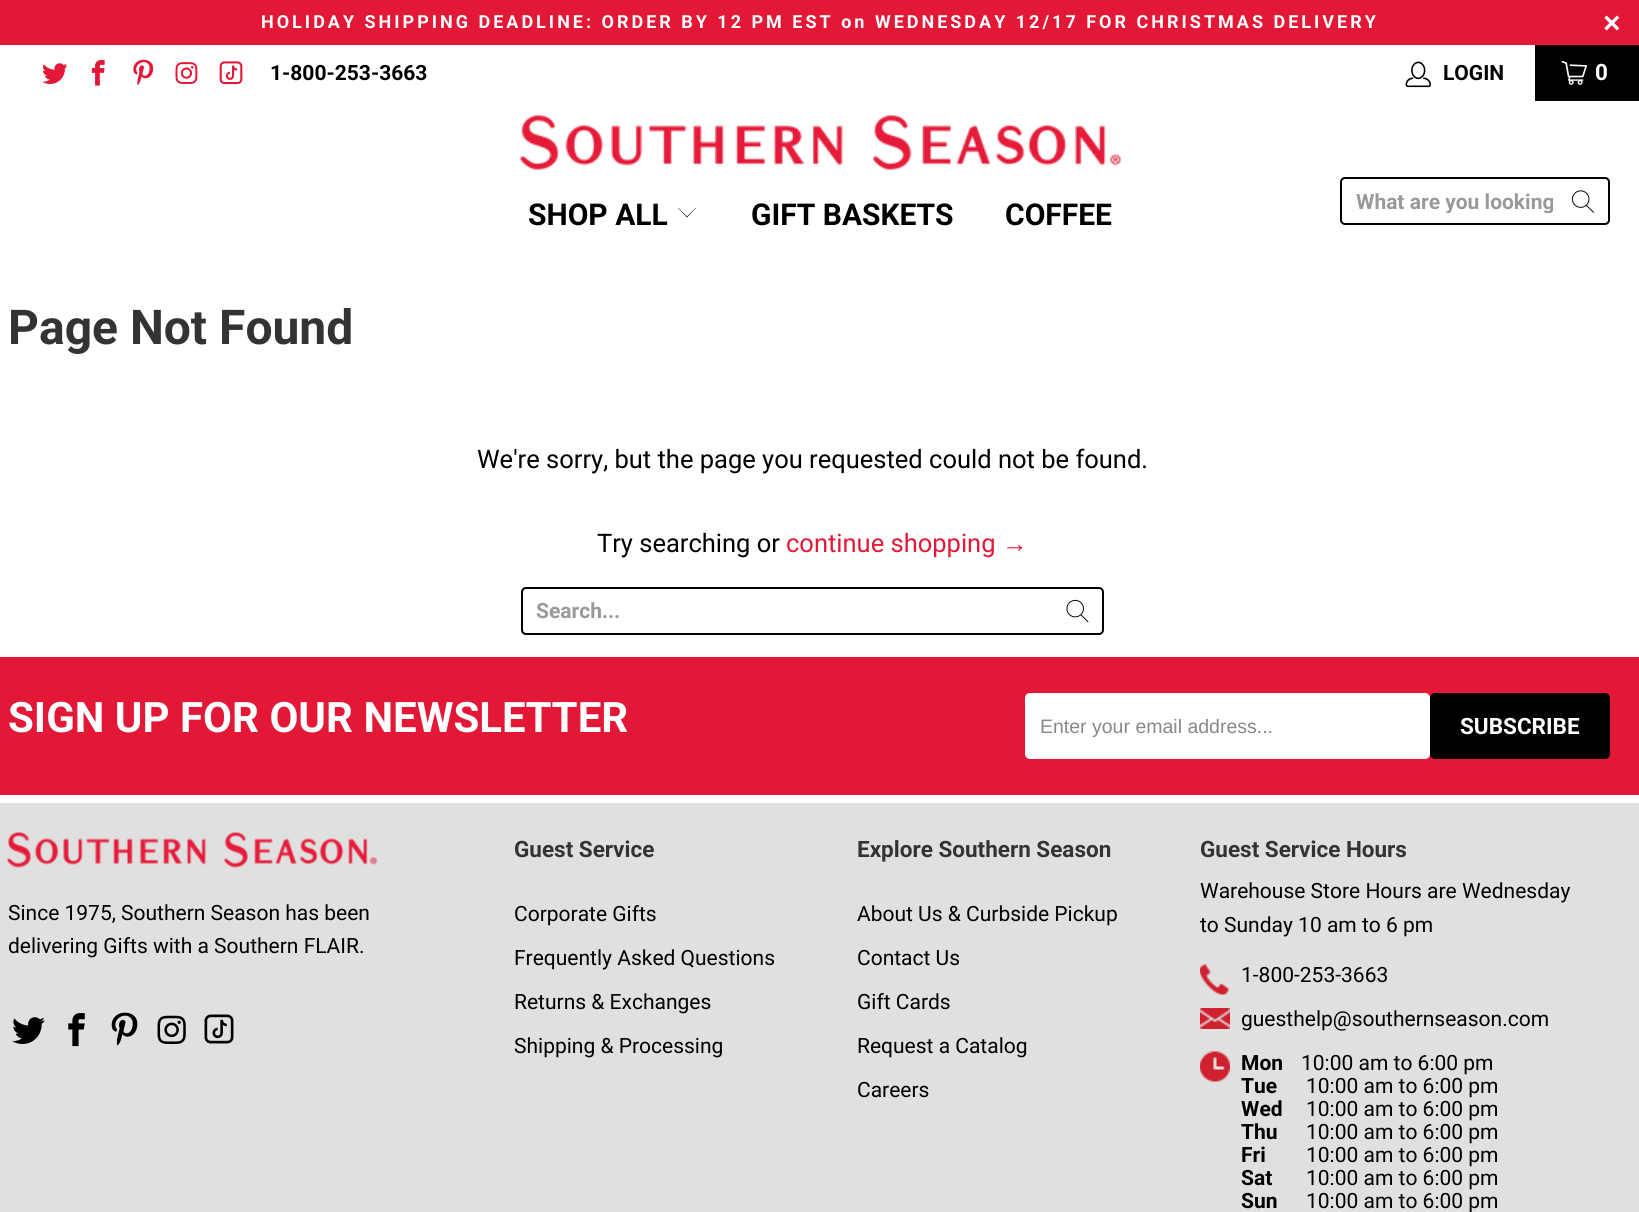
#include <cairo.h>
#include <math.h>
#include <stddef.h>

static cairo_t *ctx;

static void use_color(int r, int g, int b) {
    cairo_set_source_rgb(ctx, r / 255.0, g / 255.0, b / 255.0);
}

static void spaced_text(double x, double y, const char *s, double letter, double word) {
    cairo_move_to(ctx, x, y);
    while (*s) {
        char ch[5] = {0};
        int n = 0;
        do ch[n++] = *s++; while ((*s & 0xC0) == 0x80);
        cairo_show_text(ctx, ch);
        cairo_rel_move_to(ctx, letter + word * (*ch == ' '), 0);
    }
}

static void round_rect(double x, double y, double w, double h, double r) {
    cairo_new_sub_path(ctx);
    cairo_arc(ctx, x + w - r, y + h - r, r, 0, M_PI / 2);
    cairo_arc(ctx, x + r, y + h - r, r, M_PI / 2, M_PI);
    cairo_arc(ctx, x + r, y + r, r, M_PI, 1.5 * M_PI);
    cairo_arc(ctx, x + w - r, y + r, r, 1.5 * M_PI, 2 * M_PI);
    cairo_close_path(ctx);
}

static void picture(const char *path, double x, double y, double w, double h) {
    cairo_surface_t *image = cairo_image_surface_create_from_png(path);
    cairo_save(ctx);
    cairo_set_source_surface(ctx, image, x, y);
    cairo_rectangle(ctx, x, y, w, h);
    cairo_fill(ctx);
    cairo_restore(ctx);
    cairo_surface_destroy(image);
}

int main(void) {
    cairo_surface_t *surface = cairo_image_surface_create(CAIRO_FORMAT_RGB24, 1639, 1212);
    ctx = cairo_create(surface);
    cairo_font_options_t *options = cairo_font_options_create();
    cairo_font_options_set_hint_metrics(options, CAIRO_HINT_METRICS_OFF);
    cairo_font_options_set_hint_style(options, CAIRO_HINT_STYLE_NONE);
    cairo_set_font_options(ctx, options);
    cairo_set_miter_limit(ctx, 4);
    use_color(255, 255, 255);
    cairo_paint(ctx);
    use_color(227, 24, 55);
    cairo_rectangle(ctx, 0, 0, 1639, 45);
    cairo_fill(ctx);
    cairo_select_font_face(ctx, "Roboto", CAIRO_FONT_SLANT_NORMAL, CAIRO_FONT_WEIGHT_BOLD);
    cairo_set_font_size(ctx, 18);
    use_color(255, 255, 255);
    spaced_text(261, 28, "HOLIDAY SHIPPING DEADLINE: ORDER BY 12 PM EST on WEDNESDAY 12/17 FOR CHRISTMAS DELIVERY", 3, 0);
    cairo_select_font_face(ctx, "Liberation Sans", CAIRO_FONT_SLANT_NORMAL, CAIRO_FONT_WEIGHT_BOLD);
    cairo_set_font_size(ctx, 30);
    spaced_text(1603, 33, "×", 3, 0);
    picture("img1.png", 42, 63, 26, 21);
    picture("img2.png", 91, 60, 14, 26);
    picture("img3.png", 133, 59, 21, 27);
    picture("img4.png", 175, 62, 23, 22);
    picture("img5.png", 219, 61, 24, 24);
    cairo_select_font_face(ctx, "Roboto", CAIRO_FONT_SLANT_NORMAL, CAIRO_FONT_WEIGHT_BOLD);
    cairo_set_font_size(ctx, 21);
    use_color(0, 0, 0);
    cairo_move_to(ctx, 270, 80);
    cairo_show_text(ctx, "1-800-253-3663");
    picture("img6.png", 1405, 61, 26, 27);
    cairo_move_to(ctx, 1443, 80);
    cairo_show_text(ctx, "LOGIN");
    cairo_rectangle(ctx, 1535, 45, 104, 56);
    cairo_fill(ctx);
    picture("img7.png", 1561, 60, 26, 25);
    cairo_set_font_size(ctx, 22.5);
    use_color(255, 255, 255);
    cairo_move_to(ctx, 1595, 80);
    cairo_show_text(ctx, "0");
    picture("img8.png", 520, 115, 601, 55);
    cairo_set_font_size(ctx, 30);
    use_color(0, 0, 0);
    cairo_move_to(ctx, 528, 225);
    cairo_show_text(ctx, "SHOP ALL");
    cairo_new_path(ctx);
    cairo_move_to(ctx, 687, 217.5);
    cairo_line_to(ctx, 678, 208);
    cairo_line_to(ctx, 678.5, 208);
    cairo_line_to(ctx, 687, 216.5);
    cairo_line_to(ctx, 695.5, 208);
    cairo_line_to(ctx, 696, 208);
    cairo_close_path(ctx);
    cairo_fill(ctx);
    cairo_move_to(ctx, 751, 225);
    cairo_show_text(ctx, "GIFT BASKETS");
    cairo_move_to(ctx, 1005, 225);
    cairo_show_text(ctx, "COFFEE");
    round_rect(1341, 178, 268, 46, 4);
    cairo_stroke(ctx);
    cairo_save(ctx);
    cairo_rectangle(ctx, 1356, 189, 200, 24);
    cairo_clip(ctx);
    cairo_set_font_size(ctx, 21);
    use_color(153, 153, 153);
    cairo_move_to(ctx, 1356, 209);
    cairo_show_text(ctx, "What are you looking");
    cairo_restore(ctx);
    picture("img9.png", 1572, 190, 22, 23);
    cairo_set_font_size(ctx, 48);
    use_color(51, 51, 51);
    cairo_move_to(ctx, 8, 344);
    cairo_show_text(ctx, "Page Not Found");
    cairo_select_font_face(ctx, "Roboto", CAIRO_FONT_SLANT_NORMAL, CAIRO_FONT_WEIGHT_NORMAL);
    cairo_set_font_size(ctx, 25.5);
    use_color(0, 0, 0);
    cairo_move_to(ctx, 477, 468);
    cairo_show_text(ctx, "We're sorry, but the page you requested could not be found.");
    cairo_move_to(ctx, 597, 552);
    cairo_show_text(ctx, "Try searching or");
    use_color(227, 24, 55);
    cairo_move_to(ctx, 786, 552);
    cairo_show_text(ctx, "continue shopping");
    cairo_select_font_face(ctx, "Liberation Sans", CAIRO_FONT_SLANT_NORMAL, CAIRO_FONT_WEIGHT_NORMAL);
    cairo_move_to(ctx, 1002, 552);
    cairo_show_text(ctx, "→");
    round_rect(522, 588, 581, 46, 4);
    use_color(0, 0, 0);
    cairo_stroke(ctx);
    cairo_select_font_face(ctx, "Roboto", CAIRO_FONT_SLANT_NORMAL, CAIRO_FONT_WEIGHT_BOLD);
    cairo_set_font_size(ctx, 21);
    use_color(153, 153, 153);
    cairo_move_to(ctx, 536, 618);
    cairo_show_text(ctx, "Search...");
    picture("img10.png", 1066, 599, 23, 24);
    use_color(227, 24, 55);
    cairo_rectangle(ctx, 0, 657, 1639, 138);
    cairo_fill(ctx);
    cairo_set_font_size(ctx, 42);
    use_color(255, 255, 255);
    cairo_move_to(ctx, 8, 732);
    cairo_show_text(ctx, "SIGN UP FOR OUR NEWSLETTER");
    round_rect(1025, 693, 405, 66, 5);
    cairo_fill(ctx);
    cairo_select_font_face(ctx, "Liberation Sans", CAIRO_FONT_SLANT_NORMAL, CAIRO_FONT_WEIGHT_NORMAL);
    cairo_set_font_size(ctx, 19.5);
    use_color(136, 136, 136);
    cairo_move_to(ctx, 1040, 733);
    cairo_show_text(ctx, "Enter your email address...");
    use_color(0, 0, 0);
    round_rect(1431, 694, 178, 64, 4);
    cairo_fill_preserve(ctx);
    cairo_stroke(ctx);
    cairo_select_font_face(ctx, "Roboto", CAIRO_FONT_SLANT_NORMAL, CAIRO_FONT_WEIGHT_BOLD);
    cairo_set_font_size(ctx, 22.5);
    use_color(255, 255, 255);
    cairo_move_to(ctx, 1460, 734);
    cairo_show_text(ctx, "SUBSCRIBE");
    use_color(224, 224, 224);
    cairo_rectangle(ctx, 0, 803, 1639, 409);
    cairo_fill(ctx);
    picture("img11.png", 7, 832, 370, 36);
    cairo_select_font_face(ctx, "Roboto", CAIRO_FONT_SLANT_NORMAL, CAIRO_FONT_WEIGHT_NORMAL);
    cairo_set_font_size(ctx, 21);
    use_color(0, 0, 0);
    cairo_move_to(ctx, 8, 920);
    cairo_show_text(ctx, "Since 1975, Southern Season has been");
    cairo_move_to(ctx, 8, 953);
    cairo_show_text(ctx, "delivering Gifts with a Southern FLAIR.");
    picture("img12.png", 12, 1017, 33, 27);
    picture("img13.png", 68, 1013, 17, 34);
    picture("img14.png", 111, 1012, 27, 34);
    picture("img15.png", 157, 1015, 29, 29);
    picture("img16.png", 204, 1014, 30, 30);
    cairo_select_font_face(ctx, "Roboto", CAIRO_FONT_SLANT_NORMAL, CAIRO_FONT_WEIGHT_BOLD);
    cairo_set_font_size(ctx, 22.5);
    use_color(51, 51, 51);
    cairo_move_to(ctx, 514, 857);
    cairo_show_text(ctx, "Guest Service");
    cairo_select_font_face(ctx, "Roboto", CAIRO_FONT_SLANT_NORMAL, CAIRO_FONT_WEIGHT_NORMAL);
    cairo_set_font_size(ctx, 21);
    use_color(0, 0, 0);
    cairo_move_to(ctx, 514, 921);
    cairo_show_text(ctx, "Corporate Gifts");
    cairo_move_to(ctx, 514, 965);
    cairo_show_text(ctx, "Frequently Asked Questions");
    cairo_move_to(ctx, 514, 1009);
    cairo_show_text(ctx, "Returns & Exchanges");
    cairo_move_to(ctx, 514, 1053);
    cairo_show_text(ctx, "Shipping & Processing");
    cairo_select_font_face(ctx, "Roboto", CAIRO_FONT_SLANT_NORMAL, CAIRO_FONT_WEIGHT_BOLD);
    cairo_set_font_size(ctx, 22.5);
    use_color(51, 51, 51);
    cairo_move_to(ctx, 857, 857);
    cairo_show_text(ctx, "Explore Southern Season");
    cairo_select_font_face(ctx, "Roboto", CAIRO_FONT_SLANT_NORMAL, CAIRO_FONT_WEIGHT_NORMAL);
    cairo_set_font_size(ctx, 21);
    use_color(0, 0, 0);
    cairo_move_to(ctx, 857, 921);
    cairo_show_text(ctx, "About Us & Curbside Pickup");
    cairo_move_to(ctx, 857, 965);
    cairo_show_text(ctx, "Contact Us");
    cairo_move_to(ctx, 857, 1009);
    cairo_show_text(ctx, "Gift Cards");
    cairo_move_to(ctx, 857, 1053);
    cairo_show_text(ctx, "Request a Catalog");
    cairo_move_to(ctx, 857, 1097);
    cairo_show_text(ctx, "Careers");
    cairo_select_font_face(ctx, "Roboto", CAIRO_FONT_SLANT_NORMAL, CAIRO_FONT_WEIGHT_BOLD);
    cairo_set_font_size(ctx, 22.5);
    use_color(51, 51, 51);
    cairo_move_to(ctx, 1200, 857);
    cairo_show_text(ctx, "Guest Service Hours");
    cairo_select_font_face(ctx, "Roboto", CAIRO_FONT_SLANT_NORMAL, CAIRO_FONT_WEIGHT_NORMAL);
    cairo_set_font_size(ctx, 21);
    use_color(0, 0, 0);
    cairo_move_to(ctx, 1200, 898);
    cairo_show_text(ctx, "Warehouse Store Hours are Wednesday");
    cairo_move_to(ctx, 1200, 932);
    cairo_show_text(ctx, "to Sunday 10 am to 6 pm");
    picture("img17.png", 1200, 964, 29, 31);
    cairo_move_to(ctx, 1241, 982);
    cairo_show_text(ctx, "1-800-253-3663");
    picture("img18.png", 1200, 1008, 30, 21);
    cairo_move_to(ctx, 1241, 1026);
    cairo_show_text(ctx, "guesthelp@southernseason.com");
    picture("img19.png", 1200, 1051, 30, 31);
    cairo_select_font_face(ctx, "Roboto", CAIRO_FONT_SLANT_NORMAL, CAIRO_FONT_WEIGHT_BOLD);
    cairo_move_to(ctx, 1241, 1070);
    cairo_show_text(ctx, "Mon");
    cairo_select_font_face(ctx, "Roboto", CAIRO_FONT_SLANT_NORMAL, CAIRO_FONT_WEIGHT_NORMAL);
    cairo_move_to(ctx, 1301, 1070);
    cairo_show_text(ctx, "10:00 am to 6:00 pm");
    cairo_select_font_face(ctx, "Roboto", CAIRO_FONT_SLANT_NORMAL, CAIRO_FONT_WEIGHT_BOLD);
    cairo_move_to(ctx, 1241, 1093);
    cairo_show_text(ctx, "Tue");
    cairo_select_font_face(ctx, "Roboto", CAIRO_FONT_SLANT_NORMAL, CAIRO_FONT_WEIGHT_NORMAL);
    cairo_move_to(ctx, 1306, 1093);
    cairo_show_text(ctx, "10:00 am to 6:00 pm");
    cairo_select_font_face(ctx, "Roboto", CAIRO_FONT_SLANT_NORMAL, CAIRO_FONT_WEIGHT_BOLD);
    cairo_move_to(ctx, 1241, 1116);
    cairo_show_text(ctx, "Wed");
    cairo_select_font_face(ctx, "Roboto", CAIRO_FONT_SLANT_NORMAL, CAIRO_FONT_WEIGHT_NORMAL);
    cairo_move_to(ctx, 1306, 1116);
    cairo_show_text(ctx, "10:00 am to 6:00 pm");
    cairo_select_font_face(ctx, "Roboto", CAIRO_FONT_SLANT_NORMAL, CAIRO_FONT_WEIGHT_BOLD);
    cairo_move_to(ctx, 1241, 1139);
    cairo_show_text(ctx, "Thu");
    cairo_select_font_face(ctx, "Roboto", CAIRO_FONT_SLANT_NORMAL, CAIRO_FONT_WEIGHT_NORMAL);
    cairo_move_to(ctx, 1306, 1139);
    cairo_show_text(ctx, "10:00 am to 6:00 pm");
    cairo_select_font_face(ctx, "Roboto", CAIRO_FONT_SLANT_NORMAL, CAIRO_FONT_WEIGHT_BOLD);
    cairo_move_to(ctx, 1241, 1162);
    cairo_show_text(ctx, "Fri");
    cairo_select_font_face(ctx, "Roboto", CAIRO_FONT_SLANT_NORMAL, CAIRO_FONT_WEIGHT_NORMAL);
    cairo_move_to(ctx, 1306, 1162);
    cairo_show_text(ctx, "10:00 am to 6:00 pm");
    cairo_select_font_face(ctx, "Roboto", CAIRO_FONT_SLANT_NORMAL, CAIRO_FONT_WEIGHT_BOLD);
    cairo_move_to(ctx, 1241, 1185);
    cairo_show_text(ctx, "Sat");
    cairo_select_font_face(ctx, "Roboto", CAIRO_FONT_SLANT_NORMAL, CAIRO_FONT_WEIGHT_NORMAL);
    cairo_move_to(ctx, 1306, 1185);
    cairo_show_text(ctx, "10:00 am to 6:00 pm");
    cairo_select_font_face(ctx, "Roboto", CAIRO_FONT_SLANT_NORMAL, CAIRO_FONT_WEIGHT_BOLD);
    cairo_move_to(ctx, 1241, 1208);
    cairo_show_text(ctx, "Sun");
    cairo_select_font_face(ctx, "Roboto", CAIRO_FONT_SLANT_NORMAL, CAIRO_FONT_WEIGHT_NORMAL);
    cairo_move_to(ctx, 1306, 1208);
    cairo_show_text(ctx, "10:00 am to 6:00 pm");
    cairo_surface_write_to_png(surface, "result.png");
    cairo_font_options_destroy(options);
    cairo_destroy(ctx);
    cairo_surface_destroy(surface);
    return 0;
}
